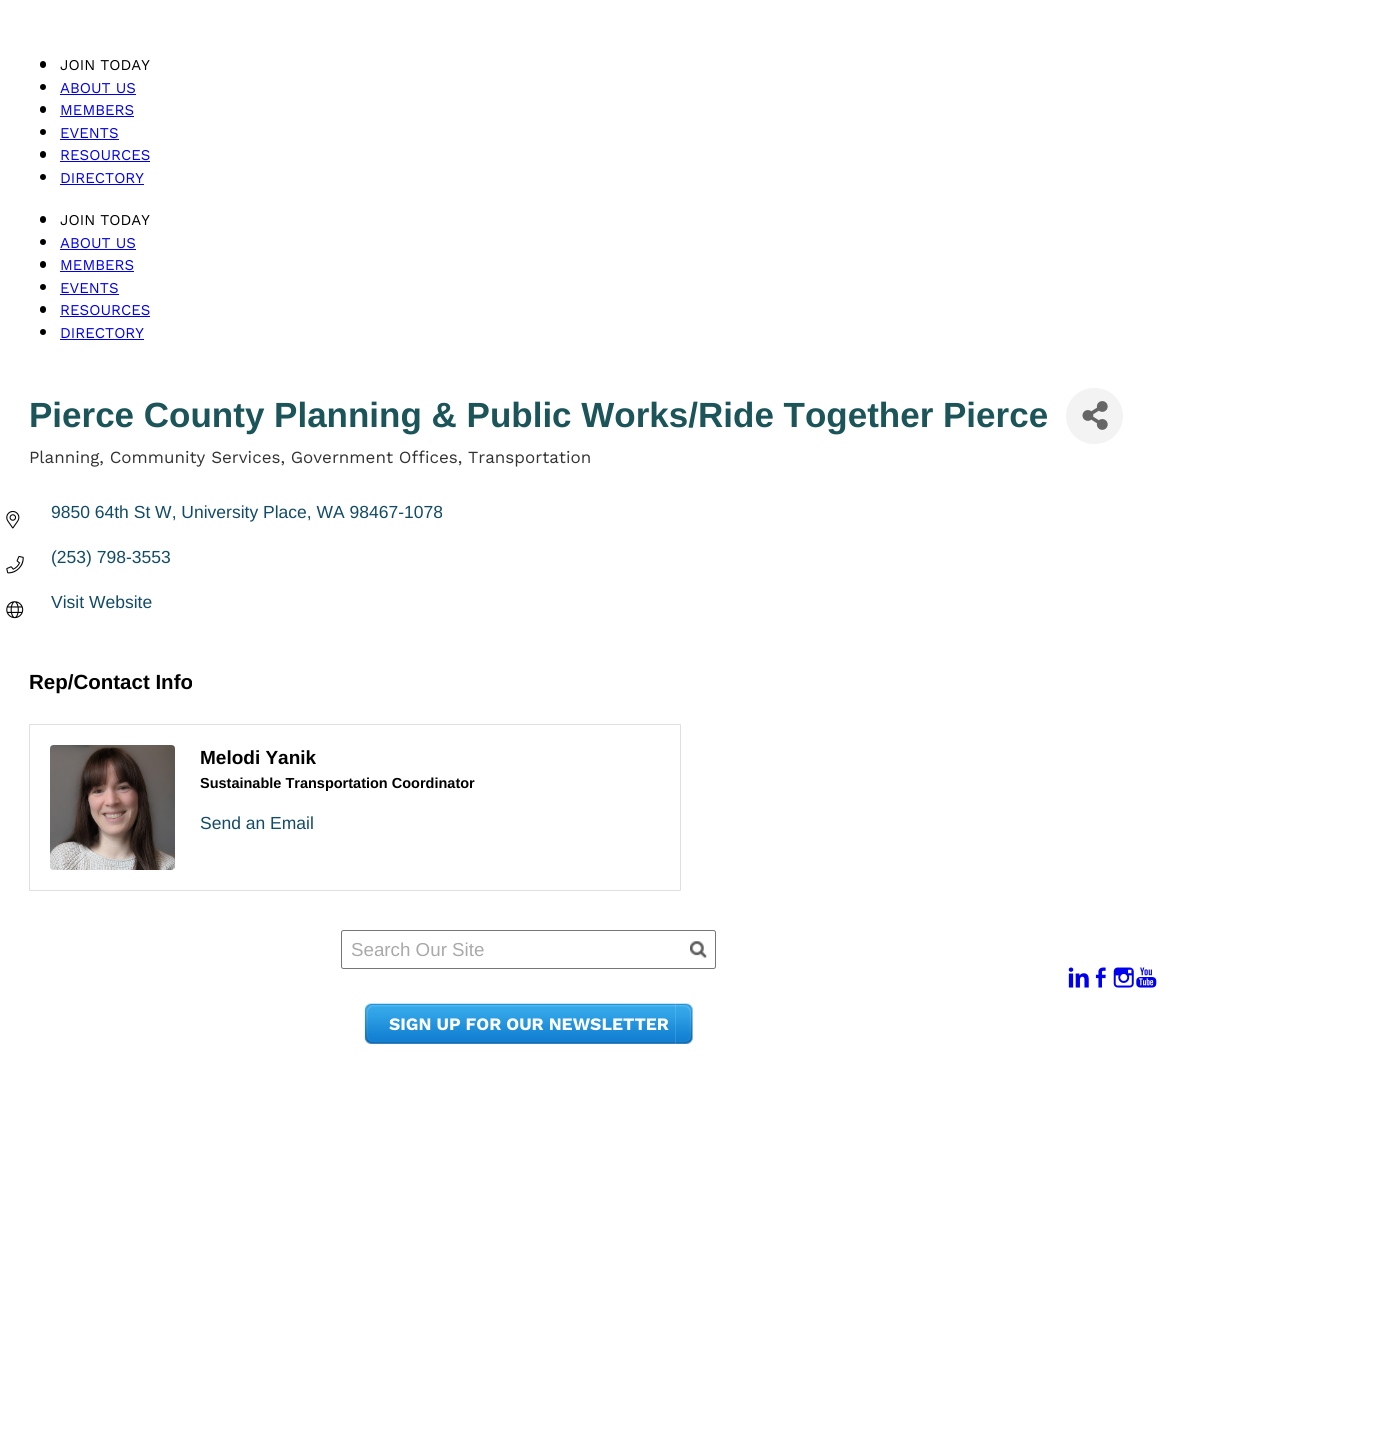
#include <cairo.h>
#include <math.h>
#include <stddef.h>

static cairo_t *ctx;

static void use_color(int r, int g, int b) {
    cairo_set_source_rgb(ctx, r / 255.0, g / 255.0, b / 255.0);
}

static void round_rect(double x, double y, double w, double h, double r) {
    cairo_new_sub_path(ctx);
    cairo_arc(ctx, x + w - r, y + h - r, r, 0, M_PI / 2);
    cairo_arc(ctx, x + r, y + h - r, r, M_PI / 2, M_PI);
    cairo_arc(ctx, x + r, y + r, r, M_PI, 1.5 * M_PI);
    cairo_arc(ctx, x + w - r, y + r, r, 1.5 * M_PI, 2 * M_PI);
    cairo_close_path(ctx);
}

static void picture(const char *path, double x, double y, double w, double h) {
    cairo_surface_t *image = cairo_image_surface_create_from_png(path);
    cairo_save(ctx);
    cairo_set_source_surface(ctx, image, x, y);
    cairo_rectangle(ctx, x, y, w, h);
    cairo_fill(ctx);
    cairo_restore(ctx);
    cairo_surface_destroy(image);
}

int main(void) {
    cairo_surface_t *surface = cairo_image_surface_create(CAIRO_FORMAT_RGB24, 1398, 1455);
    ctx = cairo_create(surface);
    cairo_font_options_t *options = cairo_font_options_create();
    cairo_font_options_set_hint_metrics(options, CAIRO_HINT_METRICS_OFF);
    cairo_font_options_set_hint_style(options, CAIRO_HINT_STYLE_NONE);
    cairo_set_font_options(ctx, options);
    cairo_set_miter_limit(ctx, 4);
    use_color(255, 255, 255);
    cairo_paint(ctx);
    use_color(0, 0, 0);
    round_rect(40, 61, 6, 7, 3);
    cairo_fill(ctx);
    cairo_select_font_face(ctx, "Work Sans", CAIRO_FONT_SLANT_NORMAL, CAIRO_FONT_WEIGHT_NORMAL);
    cairo_set_font_size(ctx, 15);
    cairo_move_to(ctx, 60, 70);
    cairo_show_text(ctx, "JOIN TODAY");
    cairo_new_path(ctx);
    cairo_arc(ctx, 43, 87, 3, 0, 2 * M_PI);
    cairo_fill(ctx);
    use_color(0, 0, 238);
    cairo_move_to(ctx, 60, 93);
    cairo_show_text(ctx, "ABOUT US");
    cairo_rectangle(ctx, 60, 94, 76, 1);
    cairo_fill(ctx);
    use_color(0, 0, 0);
    round_rect(40, 106, 6, 7, 3);
    cairo_fill(ctx);
    use_color(0, 0, 238);
    cairo_move_to(ctx, 60, 115);
    cairo_show_text(ctx, "MEMBERS");
    cairo_rectangle(ctx, 60, 116, 74, 1);
    cairo_fill(ctx);
    use_color(0, 0, 0);
    cairo_arc(ctx, 43, 132, 3, 0, 2 * M_PI);
    cairo_fill(ctx);
    use_color(0, 0, 238);
    cairo_move_to(ctx, 60, 138);
    cairo_show_text(ctx, "EVENTS");
    cairo_rectangle(ctx, 60, 139, 59, 1);
    cairo_fill(ctx);
    use_color(0, 0, 0);
    round_rect(40, 151, 6, 7, 3);
    cairo_fill(ctx);
    use_color(0, 0, 238);
    cairo_move_to(ctx, 60, 160);
    cairo_show_text(ctx, "RESOURCES");
    cairo_rectangle(ctx, 60, 161, 90, 1);
    cairo_fill(ctx);
    use_color(0, 0, 0);
    cairo_arc(ctx, 43, 177, 3, 0, 2 * M_PI);
    cairo_fill(ctx);
    use_color(0, 0, 238);
    cairo_move_to(ctx, 60, 183);
    cairo_show_text(ctx, "DIRECTORY");
    cairo_rectangle(ctx, 60, 184, 84, 1);
    cairo_fill(ctx);
    use_color(0, 0, 0);
    round_rect(40, 216, 6, 7, 3);
    cairo_fill(ctx);
    cairo_move_to(ctx, 60, 225);
    cairo_show_text(ctx, "JOIN TODAY");
    cairo_new_path(ctx);
    cairo_arc(ctx, 43, 242, 3, 0, 2 * M_PI);
    cairo_fill(ctx);
    use_color(0, 0, 238);
    cairo_move_to(ctx, 60, 248);
    cairo_show_text(ctx, "ABOUT US");
    cairo_rectangle(ctx, 60, 249, 76, 1);
    cairo_fill(ctx);
    use_color(0, 0, 0);
    round_rect(40, 261, 6, 7, 3);
    cairo_fill(ctx);
    use_color(0, 0, 238);
    cairo_move_to(ctx, 60, 270);
    cairo_show_text(ctx, "MEMBERS");
    cairo_rectangle(ctx, 60, 271, 74, 1);
    cairo_fill(ctx);
    use_color(0, 0, 0);
    cairo_arc(ctx, 43, 287, 3, 0, 2 * M_PI);
    cairo_fill(ctx);
    use_color(0, 0, 238);
    cairo_move_to(ctx, 60, 293);
    cairo_show_text(ctx, "EVENTS");
    cairo_rectangle(ctx, 60, 294, 59, 1);
    cairo_fill(ctx);
    use_color(0, 0, 0);
    round_rect(40, 306, 6, 7, 3);
    cairo_fill(ctx);
    use_color(0, 0, 238);
    cairo_move_to(ctx, 60, 315);
    cairo_show_text(ctx, "RESOURCES");
    cairo_rectangle(ctx, 60, 316, 90, 1);
    cairo_fill(ctx);
    use_color(0, 0, 0);
    cairo_arc(ctx, 43, 332, 3, 0, 2 * M_PI);
    cairo_fill(ctx);
    use_color(0, 0, 238);
    cairo_move_to(ctx, 60, 338);
    cairo_show_text(ctx, "DIRECTORY");
    cairo_rectangle(ctx, 60, 339, 84, 1);
    cairo_fill(ctx);
    cairo_select_font_face(ctx, "Liberation Sans", CAIRO_FONT_SLANT_NORMAL, CAIRO_FONT_WEIGHT_BOLD);
    cairo_set_font_size(ctx, 35);
    use_color(27, 84, 89);
    cairo_move_to(ctx, 29, 427);
    cairo_show_text(ctx, "Pierce County Planning & Public Works/Ride Together Pierce");
    use_color(243, 243, 243);
    round_rect(1066, 388, 57, 56, 28);
    cairo_fill(ctx);
    picture("img1.png", 1082, 401, 26, 29);
    cairo_select_font_face(ctx, "Work Sans", CAIRO_FONT_SLANT_NORMAL, CAIRO_FONT_WEIGHT_NORMAL);
    cairo_set_font_size(ctx, 17);
    use_color(51, 51, 51);
    cairo_move_to(ctx, 29, 463);
    cairo_show_text(ctx, "Planning, Community Services, Government Offices, Transportation");
    picture("img2.png", 6, 510, 14, 19);
    cairo_select_font_face(ctx, "Liberation Sans", CAIRO_FONT_SLANT_NORMAL, CAIRO_FONT_WEIGHT_NORMAL);
    cairo_set_font_size(ctx, 17.5);
    use_color(18, 75, 103);
    cairo_move_to(ctx, 51, 518);
    cairo_show_text(ctx, "9850 64th St W, University Place, WA 98467-1078");
    picture("img3.png", 6, 556, 18, 18);
    cairo_move_to(ctx, 51, 563);
    cairo_show_text(ctx, "(253) 798-3553");
    picture("img4.png", 6, 601, 18, 18);
    cairo_move_to(ctx, 51, 608);
    cairo_show_text(ctx, "Visit Website");
    cairo_select_font_face(ctx, "Liberation Sans", CAIRO_FONT_SLANT_NORMAL, CAIRO_FONT_WEIGHT_BOLD);
    cairo_set_font_size(ctx, 20.5);
    use_color(0, 0, 0);
    cairo_move_to(ctx, 29, 689);
    cairo_show_text(ctx, "Rep/Contact Info");
    round_rect(29.5, 724.5, 651, 166, 0.5);
    use_color(223, 223, 223);
    cairo_set_line_width(ctx, 1);
    cairo_stroke(ctx);
    picture("img5.png", 50, 745, 125, 125);
    cairo_set_font_size(ctx, 19);
    use_color(0, 0, 0);
    cairo_move_to(ctx, 200, 764);
    cairo_show_text(ctx, "Melodi Yanik");
    cairo_set_font_size(ctx, 14.5);
    cairo_move_to(ctx, 200, 788);
    cairo_show_text(ctx, "Sustainable Transportation Coordinator");
    cairo_select_font_face(ctx, "Liberation Sans", CAIRO_FONT_SLANT_NORMAL, CAIRO_FONT_WEIGHT_NORMAL);
    cairo_set_font_size(ctx, 17.5);
    use_color(18, 75, 103);
    cairo_move_to(ctx, 200, 829);
    cairo_show_text(ctx, "Send an Email");
    round_rect(341.5, 930.5, 374, 38, 2);
    use_color(118, 118, 118);
    cairo_stroke(ctx);
    cairo_set_font_size(ctx, 18.75);
    use_color(169, 169, 169);
    cairo_move_to(ctx, 351, 956);
    cairo_show_text(ctx, "Search Our Site");
    picture("img6.png", 690, 941, 17, 17);
    picture("img7.png", 674, 1003, 19, 41);
    picture("img8.png", 364, 1003, 311, 41);
    cairo_select_font_face(ctx, "Work Sans", CAIRO_FONT_SLANT_NORMAL, CAIRO_FONT_WEIGHT_BOLD);
    cairo_set_font_size(ctx, 17.5);
    use_color(255, 255, 255);
    cairo_move_to(ctx, 389, 1030);
    cairo_show_text(ctx, "SIGN UP FOR OUR NEWSLETTER");
    picture("img9.png", 1068, 967, 21, 21);
    picture("img10.png", 1095, 967, 11, 21);
    picture("img11.png", 1113, 967, 21, 21);
    picture("img12.png", 1136, 967, 21, 21);
    cairo_surface_write_to_png(surface, "result.png");
    cairo_font_options_destroy(options);
    cairo_destroy(ctx);
    cairo_surface_destroy(surface);
    return 0;
}
